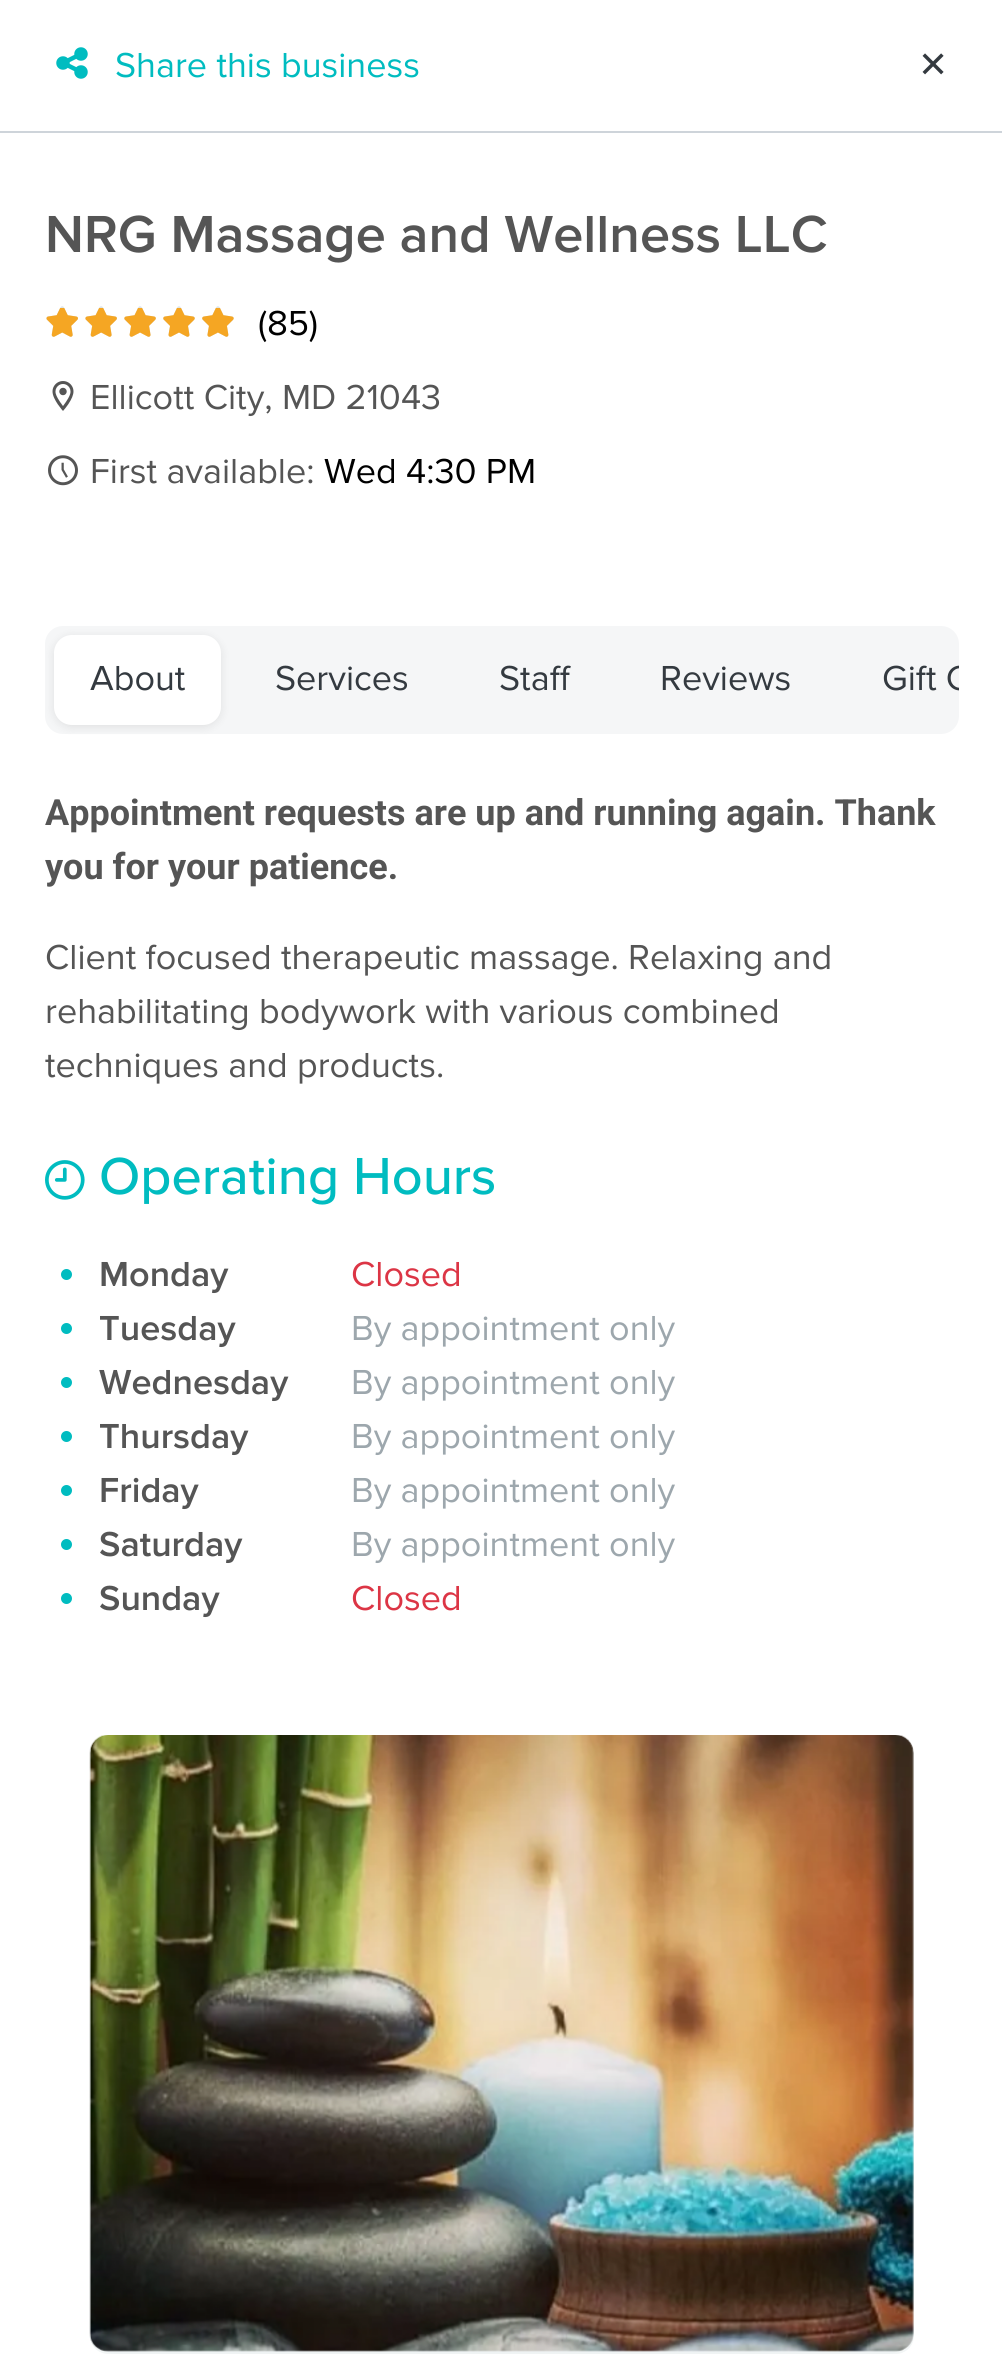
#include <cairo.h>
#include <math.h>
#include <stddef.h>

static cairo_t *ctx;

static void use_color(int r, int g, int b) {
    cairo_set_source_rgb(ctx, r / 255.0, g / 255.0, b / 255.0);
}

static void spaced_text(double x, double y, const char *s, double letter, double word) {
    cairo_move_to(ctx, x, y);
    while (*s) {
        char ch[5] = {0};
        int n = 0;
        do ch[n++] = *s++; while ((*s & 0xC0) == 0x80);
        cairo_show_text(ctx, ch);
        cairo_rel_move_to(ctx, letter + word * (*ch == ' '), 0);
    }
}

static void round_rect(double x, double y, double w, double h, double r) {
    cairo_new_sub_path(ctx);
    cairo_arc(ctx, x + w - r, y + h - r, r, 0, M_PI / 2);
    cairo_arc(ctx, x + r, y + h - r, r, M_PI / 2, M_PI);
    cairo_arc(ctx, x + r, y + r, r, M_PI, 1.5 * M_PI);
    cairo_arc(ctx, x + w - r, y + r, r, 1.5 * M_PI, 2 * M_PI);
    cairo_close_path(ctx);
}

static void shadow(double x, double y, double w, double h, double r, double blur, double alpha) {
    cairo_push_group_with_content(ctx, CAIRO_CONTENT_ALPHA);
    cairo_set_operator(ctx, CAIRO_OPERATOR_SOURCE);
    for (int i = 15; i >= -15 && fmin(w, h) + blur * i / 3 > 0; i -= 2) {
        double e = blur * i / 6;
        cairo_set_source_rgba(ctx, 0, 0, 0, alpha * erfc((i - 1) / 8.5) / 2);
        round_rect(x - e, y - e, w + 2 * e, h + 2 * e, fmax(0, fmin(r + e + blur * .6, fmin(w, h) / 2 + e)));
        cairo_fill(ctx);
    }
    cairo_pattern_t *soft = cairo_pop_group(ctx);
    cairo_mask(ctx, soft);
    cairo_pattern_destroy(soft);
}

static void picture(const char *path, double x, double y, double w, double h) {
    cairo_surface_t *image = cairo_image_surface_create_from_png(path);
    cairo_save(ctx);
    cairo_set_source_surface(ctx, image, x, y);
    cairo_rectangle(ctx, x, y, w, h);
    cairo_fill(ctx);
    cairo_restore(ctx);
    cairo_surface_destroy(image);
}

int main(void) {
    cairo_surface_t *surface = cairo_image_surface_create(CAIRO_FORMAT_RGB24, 1002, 2354);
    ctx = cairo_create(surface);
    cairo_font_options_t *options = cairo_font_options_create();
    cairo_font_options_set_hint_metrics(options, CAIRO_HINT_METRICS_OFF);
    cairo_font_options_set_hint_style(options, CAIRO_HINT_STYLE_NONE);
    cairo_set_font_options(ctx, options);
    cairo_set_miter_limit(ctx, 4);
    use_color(255, 255, 255);
    cairo_paint(ctx);
    use_color(206, 212, 218);
    cairo_rectangle(ctx, 0, 131, 1002, 2);
    cairo_fill(ctx);
    picture("img1.png", 56, 47, 32, 32);
    cairo_select_font_face(ctx, "Proxima Nova", CAIRO_FONT_SLANT_NORMAL, CAIRO_FONT_WEIGHT_NORMAL);
    cairo_set_font_size(ctx, 36);
    use_color(0, 188, 192);
    cairo_move_to(ctx, 115, 77);
    cairo_show_text(ctx, "Share this business");
    cairo_select_font_face(ctx, "DejaVu Sans", CAIRO_FONT_SLANT_NORMAL, CAIRO_FONT_WEIGHT_NORMAL);
    use_color(52, 58, 64);
    spaced_text(918, 77, "✕", 1, 0);
    cairo_select_font_face(ctx, "Proxima Nova SemiBold", CAIRO_FONT_SLANT_NORMAL, CAIRO_FONT_WEIGHT_NORMAL);
    cairo_set_font_size(ctx, 54);
    use_color(85, 85, 85);
    cairo_move_to(ctx, 45, 252);
    cairo_show_text(ctx, "NRG Massage and Wellness LLC");
    picture("img2.png", 46, 306, 188, 31);
    picture("img3.png", 46, 308, 188, 29);
    cairo_select_font_face(ctx, "Proxima Nova", CAIRO_FONT_SLANT_NORMAL, CAIRO_FONT_WEIGHT_NORMAL);
    cairo_set_font_size(ctx, 36);
    use_color(0, 0, 0);
    cairo_move_to(ctx, 258, 335);
    cairo_show_text(ctx, "(85)");
    picture("img4.png", 52, 381, 22, 30);
    use_color(85, 85, 85);
    cairo_move_to(ctx, 90, 409);
    cairo_show_text(ctx, "Ellicott City, MD 21043");
    picture("img5.png", 48, 455, 30, 31);
    cairo_move_to(ctx, 90, 483);
    cairo_show_text(ctx, "First available:");
    use_color(0, 0, 0);
    cairo_move_to(ctx, 324, 483);
    cairo_show_text(ctx, "Wed 4:30 PM");
    use_color(245, 246, 247);
    round_rect(45, 626, 914, 108, 18);
    cairo_fill(ctx);
    use_color(18, 18, 18);
    shadow(54, 637, 167, 90, 18, 4.5, 0.1);
    use_color(255, 255, 255);
    round_rect(54, 635, 167, 90, 18);
    cairo_fill(ctx);
    use_color(52, 58, 64);
    cairo_move_to(ctx, 90, 690);
    cairo_show_text(ctx, "About");
    cairo_move_to(ctx, 275, 690);
    cairo_show_text(ctx, "Services");
    cairo_move_to(ctx, 499, 690);
    cairo_show_text(ctx, "Staff");
    cairo_move_to(ctx, 660, 690);
    cairo_show_text(ctx, "Reviews");
    cairo_save(ctx);
    round_rect(45, 626, 914, 108, 18);
    cairo_clip(ctx);
    cairo_move_to(ctx, 882, 690);
    cairo_show_text(ctx, "Gift C");
    cairo_restore(ctx);
    cairo_select_font_face(ctx, "Roboto", CAIRO_FONT_SLANT_NORMAL, CAIRO_FONT_WEIGHT_BOLD);
    use_color(85, 85, 85);
    cairo_move_to(ctx, 45, 825);
    cairo_show_text(ctx, "Appointment requests are up and running again. Thank");
    cairo_move_to(ctx, 45, 879);
    cairo_show_text(ctx, "you for your patience.");
    cairo_select_font_face(ctx, "Proxima Nova", CAIRO_FONT_SLANT_NORMAL, CAIRO_FONT_WEIGHT_NORMAL);
    cairo_move_to(ctx, 45, 969);
    cairo_show_text(ctx, "Client focused therapeutic massage. Relaxing and");
    cairo_move_to(ctx, 45, 1023);
    cairo_show_text(ctx, "rehabilitating bodywork with various combined");
    cairo_move_to(ctx, 45, 1077);
    cairo_show_text(ctx, "techniques and products.");
    picture("img6.png", 45, 1160, 40, 40);
    cairo_select_font_face(ctx, "Proxima Nova Medium", CAIRO_FONT_SLANT_NORMAL, CAIRO_FONT_WEIGHT_NORMAL);
    cairo_set_font_size(ctx, 54);
    use_color(0, 188, 192);
    cairo_move_to(ctx, 99, 1194);
    cairo_show_text(ctx, "Operating Hours");
    cairo_new_path(ctx);
    cairo_arc(ctx, 66.5, 1274.5, 5.5, 0, 2 * M_PI);
    cairo_fill(ctx);
    cairo_select_font_face(ctx, "Proxima Nova SemiBold", CAIRO_FONT_SLANT_NORMAL, CAIRO_FONT_WEIGHT_NORMAL);
    cairo_set_font_size(ctx, 36);
    use_color(85, 85, 85);
    cairo_move_to(ctx, 99, 1286);
    cairo_show_text(ctx, "Monday");
    cairo_select_font_face(ctx, "Proxima Nova", CAIRO_FONT_SLANT_NORMAL, CAIRO_FONT_WEIGHT_NORMAL);
    use_color(220, 53, 69);
    cairo_move_to(ctx, 351, 1286);
    cairo_show_text(ctx, "Closed");
    use_color(0, 188, 192);
    cairo_new_path(ctx);
    cairo_arc(ctx, 66.5, 1328.5, 5.5, 0, 2 * M_PI);
    cairo_fill(ctx);
    cairo_select_font_face(ctx, "Proxima Nova SemiBold", CAIRO_FONT_SLANT_NORMAL, CAIRO_FONT_WEIGHT_NORMAL);
    use_color(85, 85, 85);
    cairo_move_to(ctx, 99, 1340);
    cairo_show_text(ctx, "Tuesday");
    cairo_select_font_face(ctx, "Proxima Nova", CAIRO_FONT_SLANT_NORMAL, CAIRO_FONT_WEIGHT_NORMAL);
    use_color(157, 167, 173);
    cairo_move_to(ctx, 351, 1340);
    cairo_show_text(ctx, "By appointment only");
    use_color(0, 188, 192);
    cairo_new_path(ctx);
    cairo_arc(ctx, 66.5, 1382.5, 5.5, 0, 2 * M_PI);
    cairo_fill(ctx);
    cairo_select_font_face(ctx, "Proxima Nova SemiBold", CAIRO_FONT_SLANT_NORMAL, CAIRO_FONT_WEIGHT_NORMAL);
    use_color(85, 85, 85);
    cairo_move_to(ctx, 99, 1394);
    cairo_show_text(ctx, "Wednesday");
    cairo_select_font_face(ctx, "Proxima Nova", CAIRO_FONT_SLANT_NORMAL, CAIRO_FONT_WEIGHT_NORMAL);
    use_color(157, 167, 173);
    cairo_move_to(ctx, 351, 1394);
    cairo_show_text(ctx, "By appointment only");
    use_color(0, 188, 192);
    cairo_new_path(ctx);
    cairo_arc(ctx, 66.5, 1436.5, 5.5, 0, 2 * M_PI);
    cairo_fill(ctx);
    cairo_select_font_face(ctx, "Proxima Nova SemiBold", CAIRO_FONT_SLANT_NORMAL, CAIRO_FONT_WEIGHT_NORMAL);
    use_color(85, 85, 85);
    cairo_move_to(ctx, 99, 1448);
    cairo_show_text(ctx, "Thursday");
    cairo_select_font_face(ctx, "Proxima Nova", CAIRO_FONT_SLANT_NORMAL, CAIRO_FONT_WEIGHT_NORMAL);
    use_color(157, 167, 173);
    cairo_move_to(ctx, 351, 1448);
    cairo_show_text(ctx, "By appointment only");
    use_color(0, 188, 192);
    cairo_new_path(ctx);
    cairo_arc(ctx, 66.5, 1490.5, 5.5, 0, 2 * M_PI);
    cairo_fill(ctx);
    cairo_select_font_face(ctx, "Proxima Nova SemiBold", CAIRO_FONT_SLANT_NORMAL, CAIRO_FONT_WEIGHT_NORMAL);
    use_color(85, 85, 85);
    cairo_move_to(ctx, 99, 1502);
    cairo_show_text(ctx, "Friday");
    cairo_select_font_face(ctx, "Proxima Nova", CAIRO_FONT_SLANT_NORMAL, CAIRO_FONT_WEIGHT_NORMAL);
    use_color(157, 167, 173);
    cairo_move_to(ctx, 351, 1502);
    cairo_show_text(ctx, "By appointment only");
    use_color(0, 188, 192);
    cairo_new_path(ctx);
    cairo_arc(ctx, 66.5, 1544.5, 5.5, 0, 2 * M_PI);
    cairo_fill(ctx);
    cairo_select_font_face(ctx, "Proxima Nova SemiBold", CAIRO_FONT_SLANT_NORMAL, CAIRO_FONT_WEIGHT_NORMAL);
    use_color(85, 85, 85);
    cairo_move_to(ctx, 99, 1556);
    cairo_show_text(ctx, "Saturday");
    cairo_select_font_face(ctx, "Proxima Nova", CAIRO_FONT_SLANT_NORMAL, CAIRO_FONT_WEIGHT_NORMAL);
    use_color(157, 167, 173);
    cairo_move_to(ctx, 351, 1556);
    cairo_show_text(ctx, "By appointment only");
    use_color(0, 188, 192);
    cairo_new_path(ctx);
    cairo_arc(ctx, 66.5, 1598.5, 5.5, 0, 2 * M_PI);
    cairo_fill(ctx);
    cairo_select_font_face(ctx, "Proxima Nova SemiBold", CAIRO_FONT_SLANT_NORMAL, CAIRO_FONT_WEIGHT_NORMAL);
    use_color(85, 85, 85);
    cairo_move_to(ctx, 99, 1610);
    cairo_show_text(ctx, "Sunday");
    cairo_select_font_face(ctx, "Proxima Nova", CAIRO_FONT_SLANT_NORMAL, CAIRO_FONT_WEIGHT_NORMAL);
    use_color(220, 53, 69);
    cairo_move_to(ctx, 351, 1610);
    cairo_show_text(ctx, "Closed");
    cairo_save(ctx);
    round_rect(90, 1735, 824, 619, 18);
    cairo_clip(ctx);
    use_color(3, 70, 74);
    shadow(90, 1739, 824, 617, 18, 13.5, 0.1);
    cairo_restore(ctx);
    picture("img7.png", 89, 1735, 825, 617);
    cairo_surface_write_to_png(surface, "result.png");
    cairo_font_options_destroy(options);
    cairo_destroy(ctx);
    cairo_surface_destroy(surface);
    return 0;
}
